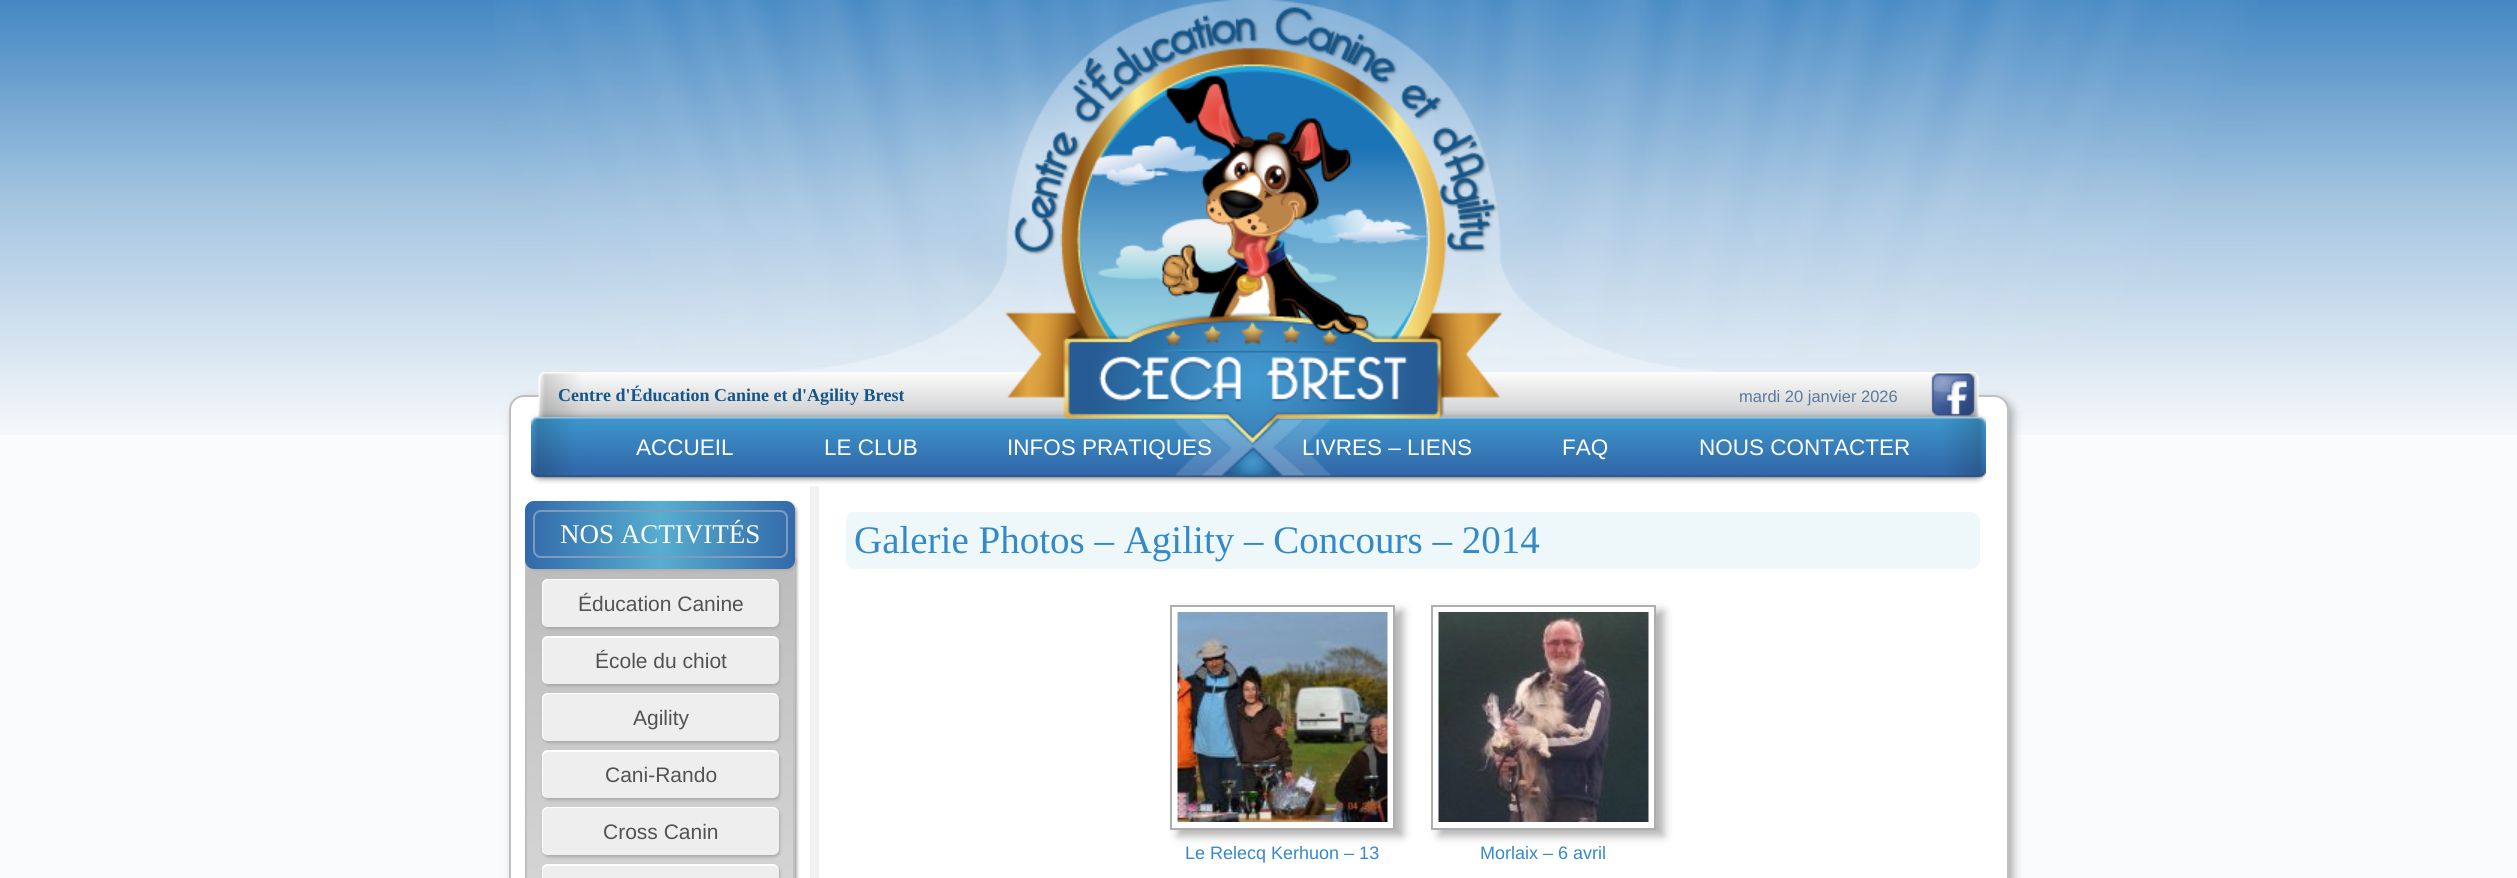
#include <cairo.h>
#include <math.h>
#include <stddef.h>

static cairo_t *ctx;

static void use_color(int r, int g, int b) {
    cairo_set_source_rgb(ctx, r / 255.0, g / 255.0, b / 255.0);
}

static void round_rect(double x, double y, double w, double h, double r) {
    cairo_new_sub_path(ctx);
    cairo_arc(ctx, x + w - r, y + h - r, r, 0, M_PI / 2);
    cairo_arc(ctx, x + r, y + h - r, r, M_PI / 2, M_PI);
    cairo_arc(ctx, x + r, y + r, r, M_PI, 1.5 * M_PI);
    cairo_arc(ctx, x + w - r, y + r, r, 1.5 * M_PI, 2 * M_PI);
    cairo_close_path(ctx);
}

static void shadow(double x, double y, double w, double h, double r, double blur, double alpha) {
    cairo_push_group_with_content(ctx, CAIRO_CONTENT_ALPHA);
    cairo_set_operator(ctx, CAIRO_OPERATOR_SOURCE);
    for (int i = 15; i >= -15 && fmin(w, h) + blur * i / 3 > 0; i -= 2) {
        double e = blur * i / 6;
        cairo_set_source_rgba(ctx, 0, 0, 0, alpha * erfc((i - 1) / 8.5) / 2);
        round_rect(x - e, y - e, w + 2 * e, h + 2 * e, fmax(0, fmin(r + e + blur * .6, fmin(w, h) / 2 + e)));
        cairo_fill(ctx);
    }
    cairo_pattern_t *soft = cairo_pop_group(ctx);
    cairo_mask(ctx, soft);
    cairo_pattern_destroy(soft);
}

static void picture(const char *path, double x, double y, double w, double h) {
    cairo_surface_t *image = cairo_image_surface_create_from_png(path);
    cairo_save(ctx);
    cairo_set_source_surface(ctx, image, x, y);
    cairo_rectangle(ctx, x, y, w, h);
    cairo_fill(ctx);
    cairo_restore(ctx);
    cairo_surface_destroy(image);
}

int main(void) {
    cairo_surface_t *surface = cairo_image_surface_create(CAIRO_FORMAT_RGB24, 2517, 878);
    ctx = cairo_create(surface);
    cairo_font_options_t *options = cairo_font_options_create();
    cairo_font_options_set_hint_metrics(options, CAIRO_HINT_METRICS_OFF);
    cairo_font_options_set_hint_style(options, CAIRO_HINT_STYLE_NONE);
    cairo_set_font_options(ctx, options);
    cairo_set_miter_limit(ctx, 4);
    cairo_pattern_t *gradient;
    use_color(250, 251, 252);
    cairo_paint(ctx);
    picture("img1.png", 0, 0, 2517, 435);
    picture("img2.png", 494, 0, 1763, 357);
    use_color(169, 169, 169);
    shadow(513, 399, 1500, 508, 15, 4.5, 1);
    use_color(255, 255, 255);
    round_rect(510, 396, 1498, 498, 14);
    cairo_fill_preserve(ctx);
    use_color(192, 192, 192);
    cairo_stroke(ctx);
    picture("img6.png", 591, 372, 1335, 112);
    picture("img3.png", 782, 0, 934, 476);
    picture("img4.png", 531, 372, 60, 112);
    picture("img5.png", 1926, 372, 60, 112);
    cairo_select_font_face(ctx, "Liberation Serif", CAIRO_FONT_SLANT_NORMAL, CAIRO_FONT_WEIGHT_BOLD);
    cairo_set_font_size(ctx, 18);
    use_color(20, 86, 138);
    cairo_move_to(ctx, 558, 401);
    cairo_show_text(ctx, "Centre d'Éducation Canine et d'Agility Brest");
    cairo_select_font_face(ctx, "Liberation Sans", CAIRO_FONT_SLANT_NORMAL, CAIRO_FONT_WEIGHT_NORMAL);
    cairo_set_font_size(ctx, 16.5);
    use_color(87, 120, 157);
    cairo_move_to(ctx, 1739, 402);
    cairo_show_text(ctx, "mardi 20 janvier 2026");
    picture("img7.png", 1931, 373, 44, 43);
    cairo_set_font_size(ctx, 22.5);
    use_color(255, 255, 255);
    cairo_move_to(ctx, 636, 455);
    cairo_show_text(ctx, "ACCUEIL");
    cairo_move_to(ctx, 824, 455);
    cairo_show_text(ctx, "LE CLUB");
    cairo_move_to(ctx, 1007, 455);
    cairo_show_text(ctx, "INFOS PRATIQUES");
    cairo_move_to(ctx, 1302, 455);
    cairo_show_text(ctx, "LIVRES – LIENS");
    cairo_move_to(ctx, 1562, 455);
    cairo_show_text(ctx, "FAQ");
    cairo_move_to(ctx, 1699, 455);
    cairo_show_text(ctx, "NOUS CONTACTER");
    use_color(169, 169, 169);
    shadow(527, 555, 270, 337, 9, 1.5, 1);
    cairo_save(ctx);
    round_rect(525, 554, 270, 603, 9);
    cairo_clip(ctx);
    gradient = cairo_pattern_create_linear(660, 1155, 660, 555);
    cairo_pattern_add_color_stop_rgba(gradient, 0, 0.918, 0.918, 0.918, 1);
    cairo_pattern_add_color_stop_rgba(gradient, 1, 0.733, 0.733, 0.733, 1);
    cairo_set_source(ctx, gradient);
    cairo_pattern_destroy(gradient);
    cairo_rectangle(ctx, 525, 560, 270, 318);
    cairo_fill(ctx);
    cairo_restore(ctx);
    round_rect(526, 555, 268, 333, 8);
    use_color(192, 192, 192);
    cairo_stroke(ctx);
    use_color(169, 169, 169);
    shadow(527, 503, 270, 67, 9, 1.5, 1);
    gradient = cairo_pattern_create_linear(525, 535, 795, 535);
    cairo_pattern_add_color_stop_rgba(gradient, 0, 0.196, 0.412, 0.667, 1);
    cairo_pattern_add_color_stop_rgba(gradient, 0.5, 0.341, 0.682, 0.816, 1);
    cairo_pattern_add_color_stop_rgba(gradient, 1, 0.196, 0.412, 0.667, 1);
    cairo_set_source(ctx, gradient);
    cairo_pattern_destroy(gradient);
    round_rect(525, 501, 270, 68, 9);
    cairo_fill(ctx);
    round_rect(534, 511, 253, 46, 7);
    use_color(127, 155, 187);
    cairo_stroke(ctx);
    cairo_select_font_face(ctx, "Liberation Serif", CAIRO_FONT_SLANT_NORMAL, CAIRO_FONT_WEIGHT_NORMAL);
    cairo_set_font_size(ctx, 27);
    use_color(255, 255, 255);
    cairo_move_to(ctx, 560, 543);
    cairo_show_text(ctx, "NOS ACTIVITÉS");
    use_color(169, 169, 169);
    shadow(543, 581, 237, 48, 6, 1.5, 1);
    use_color(238, 238, 238);
    round_rect(542, 579, 237, 48, 6);
    cairo_fill(ctx);
    use_color(255, 255, 255);
    cairo_set_fill_rule(ctx, CAIRO_FILL_RULE_EVEN_ODD);
    cairo_new_path(ctx);
    cairo_move_to(ctx, 548, 579);
    cairo_line_to(ctx, 772, 579);
    cairo_curve_to(ctx, 776, 579, 778, 582, 778, 585);
    cairo_line_to(ctx, 778, 621);
    cairo_curve_to(ctx, 778, 624, 776, 627, 772, 627);
    cairo_line_to(ctx, 548, 627);
    cairo_curve_to(ctx, 544, 627, 542, 624, 542, 621);
    cairo_line_to(ctx, 542, 585);
    cairo_curve_to(ctx, 542, 582, 544, 579, 548, 579);
    cairo_close_path(ctx);
    cairo_move_to(ctx, 548, 580);
    cairo_line_to(ctx, 772, 580);
    cairo_curve_to(ctx, 776, 580, 778, 583, 778, 585);
    cairo_line_to(ctx, 778, 621);
    cairo_curve_to(ctx, 778, 624, 776, 627, 772, 627);
    cairo_line_to(ctx, 548, 627);
    cairo_curve_to(ctx, 545, 627, 543, 624, 543, 621);
    cairo_line_to(ctx, 543, 585);
    cairo_curve_to(ctx, 543, 583, 545, 580, 548, 580);
    cairo_close_path(ctx);
    cairo_fill(ctx);
    cairo_select_font_face(ctx, "Liberation Sans", CAIRO_FONT_SLANT_NORMAL, CAIRO_FONT_WEIGHT_NORMAL);
    cairo_set_font_size(ctx, 21);
    use_color(81, 82, 82);
    cairo_move_to(ctx, 578, 611);
    cairo_show_text(ctx, "Éducation Canine");
    use_color(169, 169, 169);
    shadow(543, 638, 237, 48, 6, 1.5, 1);
    use_color(238, 238, 238);
    round_rect(542, 636, 237, 48, 6);
    cairo_fill(ctx);
    use_color(255, 255, 255);
    cairo_new_path(ctx);
    cairo_move_to(ctx, 548, 636);
    cairo_line_to(ctx, 772, 636);
    cairo_curve_to(ctx, 776, 636, 778, 639, 778, 642);
    cairo_line_to(ctx, 778, 678);
    cairo_curve_to(ctx, 778, 681, 776, 684, 772, 684);
    cairo_line_to(ctx, 548, 684);
    cairo_curve_to(ctx, 544, 684, 542, 681, 542, 678);
    cairo_line_to(ctx, 542, 642);
    cairo_curve_to(ctx, 542, 639, 544, 636, 548, 636);
    cairo_close_path(ctx);
    cairo_move_to(ctx, 548, 638);
    cairo_line_to(ctx, 772, 638);
    cairo_curve_to(ctx, 776, 638, 778, 640, 778, 642);
    cairo_line_to(ctx, 778, 678);
    cairo_curve_to(ctx, 778, 681, 776, 684, 772, 684);
    cairo_line_to(ctx, 548, 684);
    cairo_curve_to(ctx, 545, 684, 543, 681, 543, 678);
    cairo_line_to(ctx, 543, 642);
    cairo_curve_to(ctx, 543, 640, 545, 638, 548, 638);
    cairo_close_path(ctx);
    cairo_fill(ctx);
    use_color(81, 82, 82);
    cairo_move_to(ctx, 595, 668);
    cairo_show_text(ctx, "École du chiot");
    use_color(169, 169, 169);
    shadow(543, 695, 237, 48, 6, 1.5, 1);
    use_color(238, 238, 238);
    round_rect(542, 693, 237, 48, 6);
    cairo_fill(ctx);
    use_color(255, 255, 255);
    cairo_new_path(ctx);
    cairo_move_to(ctx, 548, 693);
    cairo_line_to(ctx, 772, 693);
    cairo_curve_to(ctx, 776, 693, 778, 696, 778, 699);
    cairo_line_to(ctx, 778, 735);
    cairo_curve_to(ctx, 778, 738, 776, 741, 772, 741);
    cairo_line_to(ctx, 548, 741);
    cairo_curve_to(ctx, 544, 741, 542, 738, 542, 735);
    cairo_line_to(ctx, 542, 699);
    cairo_curve_to(ctx, 542, 696, 544, 693, 548, 693);
    cairo_close_path(ctx);
    cairo_move_to(ctx, 548, 694);
    cairo_line_to(ctx, 772, 694);
    cairo_curve_to(ctx, 776, 694, 778, 697, 778, 699);
    cairo_line_to(ctx, 778, 735);
    cairo_curve_to(ctx, 778, 738, 776, 741, 772, 741);
    cairo_line_to(ctx, 548, 741);
    cairo_curve_to(ctx, 545, 741, 543, 738, 543, 735);
    cairo_line_to(ctx, 543, 699);
    cairo_curve_to(ctx, 543, 697, 545, 694, 548, 694);
    cairo_close_path(ctx);
    cairo_fill(ctx);
    use_color(81, 82, 82);
    cairo_move_to(ctx, 633, 725);
    cairo_show_text(ctx, "Agility");
    use_color(169, 169, 169);
    shadow(543, 752, 237, 48, 6, 1.5, 1);
    use_color(238, 238, 238);
    round_rect(542, 750, 237, 48, 6);
    cairo_fill(ctx);
    use_color(255, 255, 255);
    cairo_new_path(ctx);
    cairo_move_to(ctx, 548, 750);
    cairo_line_to(ctx, 772, 750);
    cairo_curve_to(ctx, 776, 750, 778, 753, 778, 756);
    cairo_line_to(ctx, 778, 792);
    cairo_curve_to(ctx, 778, 795, 776, 798, 772, 798);
    cairo_line_to(ctx, 548, 798);
    cairo_curve_to(ctx, 544, 798, 542, 795, 542, 792);
    cairo_line_to(ctx, 542, 756);
    cairo_curve_to(ctx, 542, 753, 544, 750, 548, 750);
    cairo_close_path(ctx);
    cairo_move_to(ctx, 548, 752);
    cairo_line_to(ctx, 772, 752);
    cairo_curve_to(ctx, 776, 752, 778, 754, 778, 756);
    cairo_line_to(ctx, 778, 792);
    cairo_curve_to(ctx, 778, 795, 776, 798, 772, 798);
    cairo_line_to(ctx, 548, 798);
    cairo_curve_to(ctx, 545, 798, 543, 795, 543, 792);
    cairo_line_to(ctx, 543, 756);
    cairo_curve_to(ctx, 543, 754, 545, 752, 548, 752);
    cairo_close_path(ctx);
    cairo_fill(ctx);
    use_color(81, 82, 82);
    cairo_move_to(ctx, 605, 782);
    cairo_show_text(ctx, "Cani-Rando");
    use_color(169, 169, 169);
    shadow(543, 809, 237, 48, 6, 1.5, 1);
    use_color(238, 238, 238);
    round_rect(542, 807, 237, 48, 6);
    cairo_fill(ctx);
    use_color(255, 255, 255);
    cairo_new_path(ctx);
    cairo_move_to(ctx, 548, 807);
    cairo_line_to(ctx, 772, 807);
    cairo_curve_to(ctx, 776, 807, 778, 810, 778, 813);
    cairo_line_to(ctx, 778, 849);
    cairo_curve_to(ctx, 778, 852, 776, 855, 772, 855);
    cairo_line_to(ctx, 548, 855);
    cairo_curve_to(ctx, 544, 855, 542, 852, 542, 849);
    cairo_line_to(ctx, 542, 813);
    cairo_curve_to(ctx, 542, 810, 544, 807, 548, 807);
    cairo_close_path(ctx);
    cairo_move_to(ctx, 548, 808);
    cairo_line_to(ctx, 772, 808);
    cairo_curve_to(ctx, 776, 808, 778, 811, 778, 813);
    cairo_line_to(ctx, 778, 849);
    cairo_curve_to(ctx, 778, 852, 776, 855, 772, 855);
    cairo_line_to(ctx, 548, 855);
    cairo_curve_to(ctx, 545, 855, 543, 852, 543, 849);
    cairo_line_to(ctx, 543, 813);
    cairo_curve_to(ctx, 543, 811, 545, 808, 548, 808);
    cairo_close_path(ctx);
    cairo_fill(ctx);
    use_color(81, 82, 82);
    cairo_move_to(ctx, 603, 839);
    cairo_show_text(ctx, "Cross Canin");
    use_color(169, 169, 169);
    shadow(543, 866, 237, 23, 6, 1.5, 1);
    use_color(238, 238, 238);
    round_rect(542, 864, 237, 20, 6);
    cairo_fill(ctx);
    use_color(255, 255, 255);
    cairo_new_path(ctx);
    cairo_move_to(ctx, 548, 864);
    cairo_line_to(ctx, 772, 864);
    cairo_curve_to(ctx, 776, 864, 778, 867, 778, 870);
    cairo_line_to(ctx, 778, 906);
    cairo_curve_to(ctx, 778, 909, 776, 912, 772, 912);
    cairo_line_to(ctx, 548, 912);
    cairo_curve_to(ctx, 544, 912, 542, 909, 542, 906);
    cairo_line_to(ctx, 542, 870);
    cairo_curve_to(ctx, 542, 867, 544, 864, 548, 864);
    cairo_close_path(ctx);
    cairo_move_to(ctx, 548, 866);
    cairo_line_to(ctx, 772, 866);
    cairo_curve_to(ctx, 776, 866, 778, 868, 778, 870);
    cairo_line_to(ctx, 778, 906);
    cairo_curve_to(ctx, 778, 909, 776, 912, 772, 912);
    cairo_line_to(ctx, 548, 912);
    cairo_curve_to(ctx, 545, 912, 543, 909, 543, 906);
    cairo_line_to(ctx, 543, 870);
    cairo_curve_to(ctx, 543, 868, 545, 866, 548, 866);
    cairo_close_path(ctx);
    cairo_fill(ctx);
    use_color(242, 242, 242);
    cairo_rectangle(ctx, 810, 486, 9, 392);
    cairo_fill(ctx);
    use_color(238, 247, 249);
    round_rect(846, 512, 1134, 57, 9);
    cairo_fill(ctx);
    cairo_select_font_face(ctx, "Liberation Serif", CAIRO_FONT_SLANT_NORMAL, CAIRO_FONT_WEIGHT_NORMAL);
    cairo_set_font_size(ctx, 39);
    use_color(52, 137, 200);
    cairo_move_to(ctx, 854, 553);
    cairo_show_text(ctx, "Galerie Photos – Agility – Concours – 2014");
    cairo_save(ctx);
    cairo_new_path(ctx);
    cairo_move_to(ctx, 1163, 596);
    cairo_line_to(ctx, 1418, 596);
    cairo_line_to(ctx, 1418, 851);
    cairo_line_to(ctx, 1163, 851);
    cairo_close_path(ctx);
    cairo_move_to(ctx, 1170, 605);
    cairo_line_to(ctx, 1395, 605);
    cairo_line_to(ctx, 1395, 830);
    cairo_line_to(ctx, 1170, 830);
    cairo_close_path(ctx);
    cairo_clip(ctx);
    use_color(179, 179, 179);
    shadow(1178, 611, 225, 225, 0, 4.5, 1);
    cairo_restore(ctx);
    cairo_rectangle(ctx, 1171, 606, 223, 223);
    use_color(174, 174, 174);
    cairo_stroke(ctx);
    picture("img8.png", 1177, 612, 211, 210);
    cairo_select_font_face(ctx, "Liberation Sans", CAIRO_FONT_SLANT_NORMAL, CAIRO_FONT_WEIGHT_NORMAL);
    cairo_set_font_size(ctx, 18);
    use_color(52, 137, 200);
    cairo_move_to(ctx, 1185, 859);
    cairo_show_text(ctx, "Le Relecq Kerhuon – 13");
    cairo_save(ctx);
    cairo_new_path(ctx);
    cairo_move_to(ctx, 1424, 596);
    cairo_line_to(ctx, 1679, 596);
    cairo_line_to(ctx, 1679, 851);
    cairo_line_to(ctx, 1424, 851);
    cairo_close_path(ctx);
    cairo_move_to(ctx, 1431, 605);
    cairo_line_to(ctx, 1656, 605);
    cairo_line_to(ctx, 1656, 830);
    cairo_line_to(ctx, 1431, 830);
    cairo_close_path(ctx);
    cairo_clip(ctx);
    use_color(179, 179, 179);
    shadow(1439, 611, 225, 225, 0, 4.5, 1);
    cairo_restore(ctx);
    cairo_rectangle(ctx, 1432, 606, 223, 223);
    use_color(174, 174, 174);
    cairo_stroke(ctx);
    picture("img9.png", 1438, 612, 211, 210);
    use_color(52, 137, 200);
    cairo_move_to(ctx, 1480, 859);
    cairo_show_text(ctx, "Morlaix – 6 avril");
    cairo_surface_write_to_png(surface, "result.png");
    cairo_font_options_destroy(options);
    cairo_destroy(ctx);
    cairo_surface_destroy(surface);
    return 0;
}
